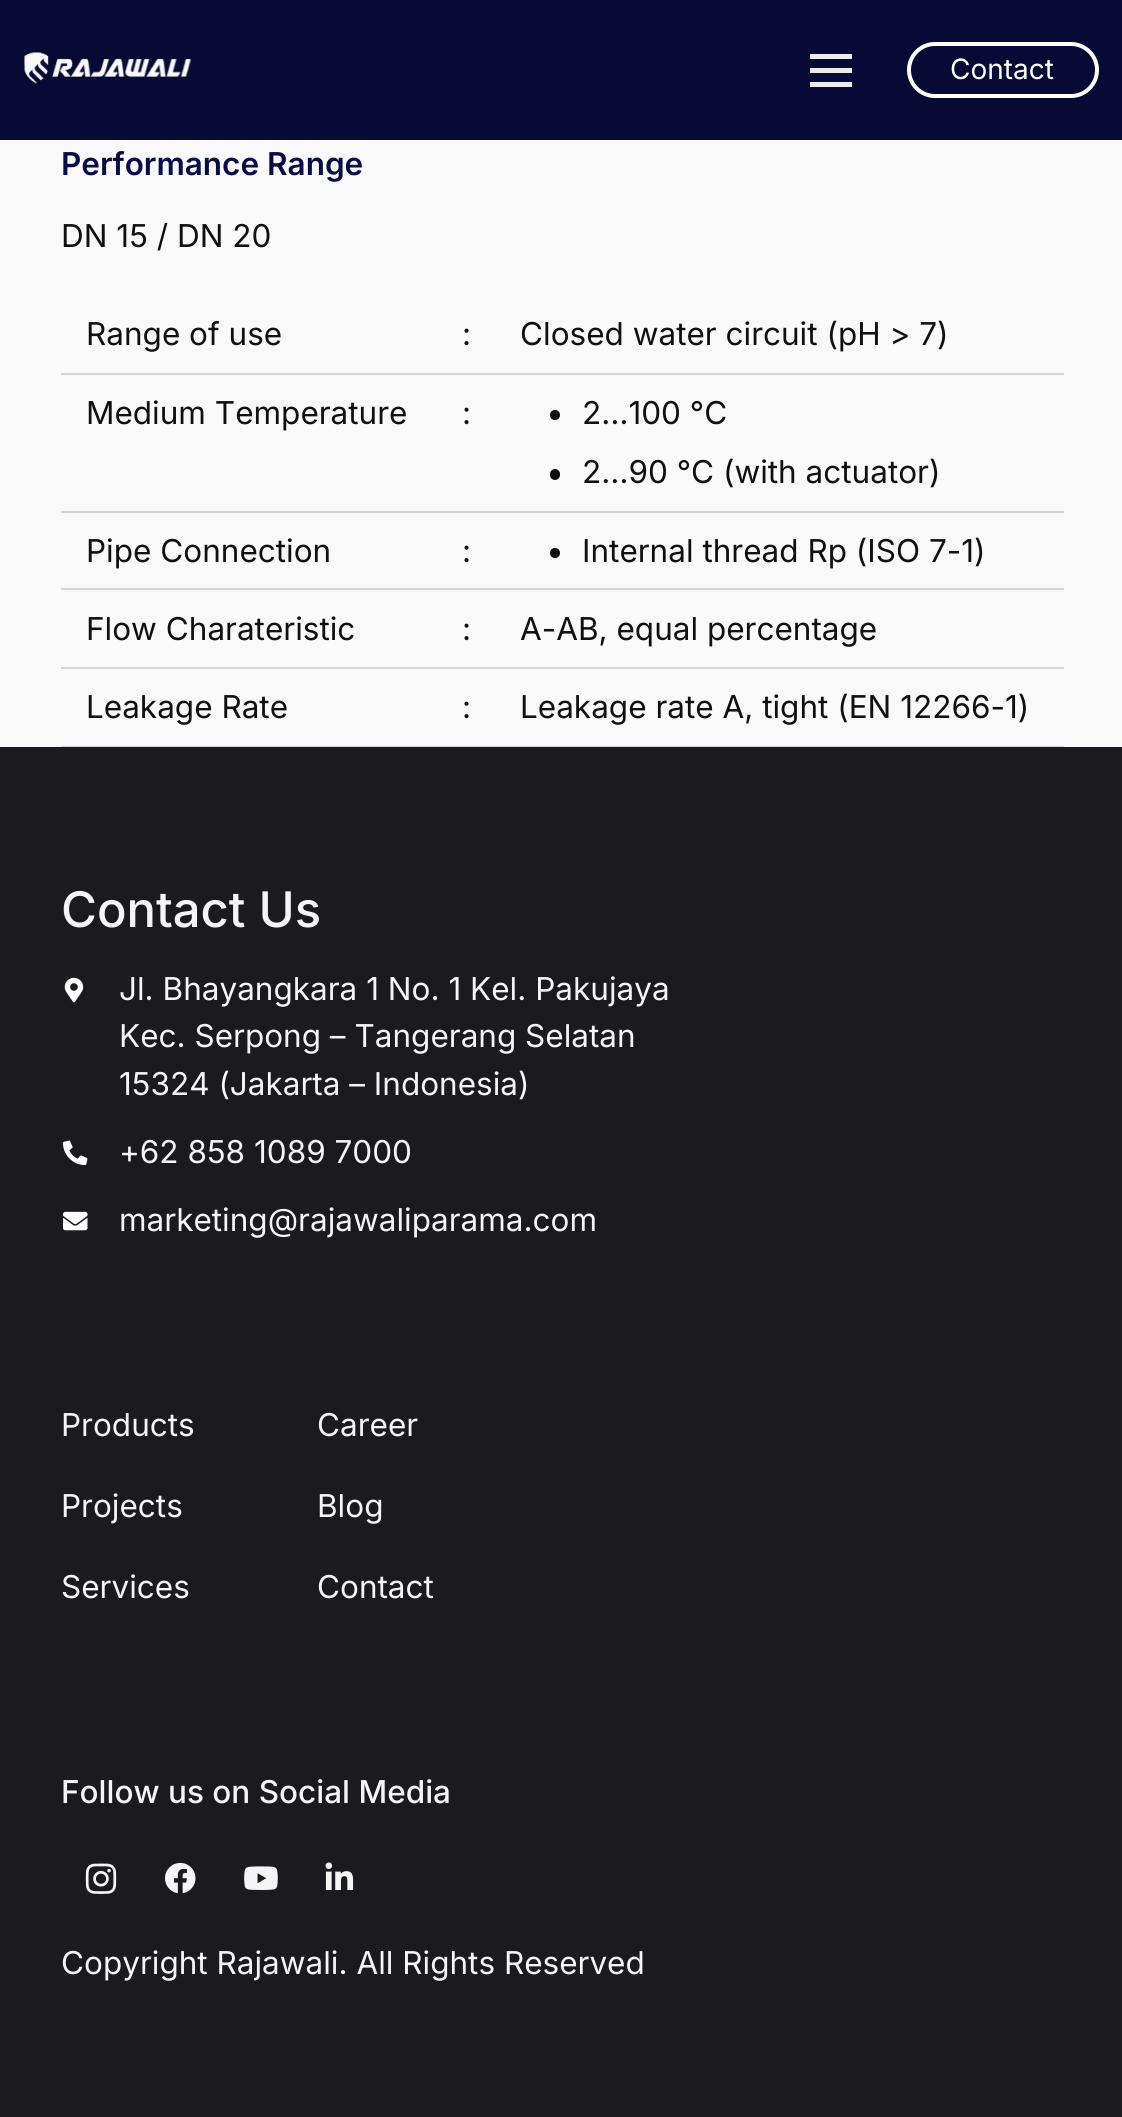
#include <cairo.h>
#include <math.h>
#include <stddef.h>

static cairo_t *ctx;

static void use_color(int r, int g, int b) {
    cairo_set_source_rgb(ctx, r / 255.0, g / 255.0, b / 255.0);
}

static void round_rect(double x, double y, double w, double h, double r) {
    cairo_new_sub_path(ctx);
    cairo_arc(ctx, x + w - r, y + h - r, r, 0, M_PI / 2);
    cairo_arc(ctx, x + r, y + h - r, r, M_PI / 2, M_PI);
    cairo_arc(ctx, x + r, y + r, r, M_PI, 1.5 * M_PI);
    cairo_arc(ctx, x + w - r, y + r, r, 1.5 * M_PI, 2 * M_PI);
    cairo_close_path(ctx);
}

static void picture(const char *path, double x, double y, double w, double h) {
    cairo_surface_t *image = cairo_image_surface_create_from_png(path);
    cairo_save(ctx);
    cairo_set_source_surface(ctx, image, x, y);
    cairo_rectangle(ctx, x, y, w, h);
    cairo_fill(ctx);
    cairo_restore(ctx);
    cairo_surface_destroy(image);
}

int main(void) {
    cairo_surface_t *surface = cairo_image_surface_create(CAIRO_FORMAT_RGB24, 1122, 2117);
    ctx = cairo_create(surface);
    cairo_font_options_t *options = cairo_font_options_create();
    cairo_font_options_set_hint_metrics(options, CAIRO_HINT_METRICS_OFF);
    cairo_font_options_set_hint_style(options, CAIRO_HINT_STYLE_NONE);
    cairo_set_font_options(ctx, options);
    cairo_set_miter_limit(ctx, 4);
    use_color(249, 249, 249);
    cairo_paint(ctx);
    use_color(7, 10, 53);
    cairo_rectangle(ctx, 0, 0, 1122, 140);
    cairo_fill(ctx);
    picture("img1.png", 24, 52, 167, 32);
    use_color(236, 236, 236);
    cairo_rectangle(ctx, 810, 68, 42, 5);
    cairo_fill(ctx);
    cairo_rectangle(ctx, 810, 54, 42, 5);
    cairo_fill(ctx);
    cairo_rectangle(ctx, 810, 82, 42, 5);
    cairo_fill(ctx);
    round_rect(909, 44, 188, 52, 26);
    use_color(255, 255, 255);
    cairo_set_line_width(ctx, 4);
    cairo_stroke(ctx);
    cairo_select_font_face(ctx, "Inter", CAIRO_FONT_SLANT_NORMAL, CAIRO_FONT_WEIGHT_NORMAL);
    cairo_set_font_size(ctx, 28);
    cairo_move_to(ctx, 950, 79);
    cairo_show_text(ctx, "Contact");
    cairo_select_font_face(ctx, "Inter SemiBold", CAIRO_FONT_SLANT_NORMAL, CAIRO_FONT_WEIGHT_NORMAL);
    cairo_set_font_size(ctx, 31.5);
    use_color(10, 13, 69);
    cairo_move_to(ctx, 61, 175);
    cairo_show_text(ctx, "Performance Range");
    cairo_select_font_face(ctx, "Inter", CAIRO_FONT_SLANT_NORMAL, CAIRO_FONT_WEIGHT_NORMAL);
    use_color(16, 16, 16);
    cairo_move_to(ctx, 61, 247);
    cairo_show_text(ctx, "DN 15 / DN 20");
    cairo_move_to(ctx, 86, 345);
    cairo_show_text(ctx, "Range of use");
    cairo_move_to(ctx, 462, 345);
    cairo_show_text(ctx, ":");
    use_color(211, 212, 215);
    cairo_rectangle(ctx, 61, 373, 1003, 2);
    cairo_fill(ctx);
    use_color(16, 16, 16);
    cairo_move_to(ctx, 520, 345);
    cairo_show_text(ctx, "Closed water circuit (pH > 7)");
    cairo_move_to(ctx, 86, 424);
    cairo_show_text(ctx, "Medium Temperature");
    cairo_move_to(ctx, 462, 424);
    cairo_show_text(ctx, ":");
    use_color(211, 212, 215);
    cairo_rectangle(ctx, 61, 511, 1003, 2);
    cairo_fill(ctx);
    use_color(16, 16, 16);
    cairo_arc(ctx, 555, 415, 5, 0, 2 * M_PI);
    cairo_fill(ctx);
    cairo_move_to(ctx, 582, 424);
    cairo_show_text(ctx, "2…100 °C");
    round_rect(550, 469, 10, 11, 5);
    cairo_fill(ctx);
    cairo_move_to(ctx, 582, 483);
    cairo_show_text(ctx, "2…90 °C (with actuator)");
    cairo_move_to(ctx, 86, 562);
    cairo_show_text(ctx, "Pipe Connection");
    cairo_move_to(ctx, 462, 562);
    cairo_show_text(ctx, ":");
    use_color(211, 212, 215);
    cairo_rectangle(ctx, 61, 588, 1003, 2);
    cairo_fill(ctx);
    use_color(16, 16, 16);
    cairo_arc(ctx, 555, 553, 5, 0, 2 * M_PI);
    cairo_fill(ctx);
    cairo_move_to(ctx, 582, 562);
    cairo_show_text(ctx, "Internal thread Rp (ISO 7-1)");
    cairo_move_to(ctx, 86, 640);
    cairo_show_text(ctx, "Flow Charateristic");
    cairo_move_to(ctx, 462, 640);
    cairo_show_text(ctx, ":");
    use_color(211, 212, 215);
    cairo_rectangle(ctx, 61, 667, 1003, 2);
    cairo_fill(ctx);
    use_color(16, 16, 16);
    cairo_move_to(ctx, 520, 640);
    cairo_show_text(ctx, "A-AB, equal percentage");
    cairo_move_to(ctx, 86, 718);
    cairo_show_text(ctx, "Leakage Rate");
    cairo_move_to(ctx, 462, 718);
    cairo_show_text(ctx, ":");
    use_color(211, 212, 215);
    cairo_rectangle(ctx, 61, 746, 1003, 1);
    cairo_fill(ctx);
    use_color(16, 16, 16);
    cairo_move_to(ctx, 520, 718);
    cairo_show_text(ctx, "Leakage rate A, tight (EN 12266-1)");
    use_color(27, 26, 31);
    cairo_rectangle(ctx, 0, 747, 1122, 1370);
    cairo_fill(ctx);
    cairo_select_font_face(ctx, "Inter Medium", CAIRO_FONT_SLANT_NORMAL, CAIRO_FONT_WEIGHT_NORMAL);
    cairo_set_font_size(ctx, 49);
    use_color(245, 245, 245);
    cairo_move_to(ctx, 61, 927);
    cairo_show_text(ctx, "Contact Us");
    picture("img2.png", 64, 977, 20, 26);
    cairo_select_font_face(ctx, "Inter", CAIRO_FONT_SLANT_NORMAL, CAIRO_FONT_WEIGHT_NORMAL);
    cairo_set_font_size(ctx, 31.5);
    cairo_move_to(ctx, 119, 1000);
    cairo_show_text(ctx, "Jl. Bhayangkara 1 No. 1 Kel. Pakujaya");
    cairo_move_to(ctx, 119, 1047);
    cairo_show_text(ctx, "Kec. Serpong – Tangerang Selatan");
    cairo_move_to(ctx, 119, 1095);
    cairo_show_text(ctx, "15324 (Jakarta – Indonesia)");
    picture("img3.png", 63, 1140, 25, 26);
    cairo_move_to(ctx, 119, 1163);
    cairo_show_text(ctx, "+62 858 1089 7000");
    picture("img4.png", 63, 1211, 25, 20);
    cairo_move_to(ctx, 119, 1231);
    cairo_show_text(ctx, "marketing@rajawaliparama.com");
    cairo_move_to(ctx, 61, 1436);
    cairo_show_text(ctx, "Products");
    cairo_move_to(ctx, 61, 1517);
    cairo_show_text(ctx, "Projects");
    cairo_move_to(ctx, 61, 1598);
    cairo_show_text(ctx, "Services");
    cairo_move_to(ctx, 317, 1436);
    cairo_show_text(ctx, "Career");
    cairo_move_to(ctx, 317, 1517);
    cairo_show_text(ctx, "Blog");
    cairo_move_to(ctx, 317, 1598);
    cairo_show_text(ctx, "Contact");
    cairo_select_font_face(ctx, "Inter Medium", CAIRO_FONT_SLANT_NORMAL, CAIRO_FONT_WEIGHT_NORMAL);
    cairo_move_to(ctx, 61, 1803);
    cairo_show_text(ctx, "Follow us on Social Media");
    picture("img5.png", 85, 1863, 32, 31);
    picture("img6.png", 165, 1862, 31, 32);
    picture("img7.png", 244, 1866, 34, 24);
    picture("img8.png", 325, 1862, 29, 28);
    cairo_select_font_face(ctx, "Inter", CAIRO_FONT_SLANT_NORMAL, CAIRO_FONT_WEIGHT_NORMAL);
    cairo_move_to(ctx, 61, 1974);
    cairo_show_text(ctx, "Copyright Rajawali. All Rights Reserved");
    cairo_surface_write_to_png(surface, "result.png");
    cairo_font_options_destroy(options);
    cairo_destroy(ctx);
    cairo_surface_destroy(surface);
    return 0;
}
